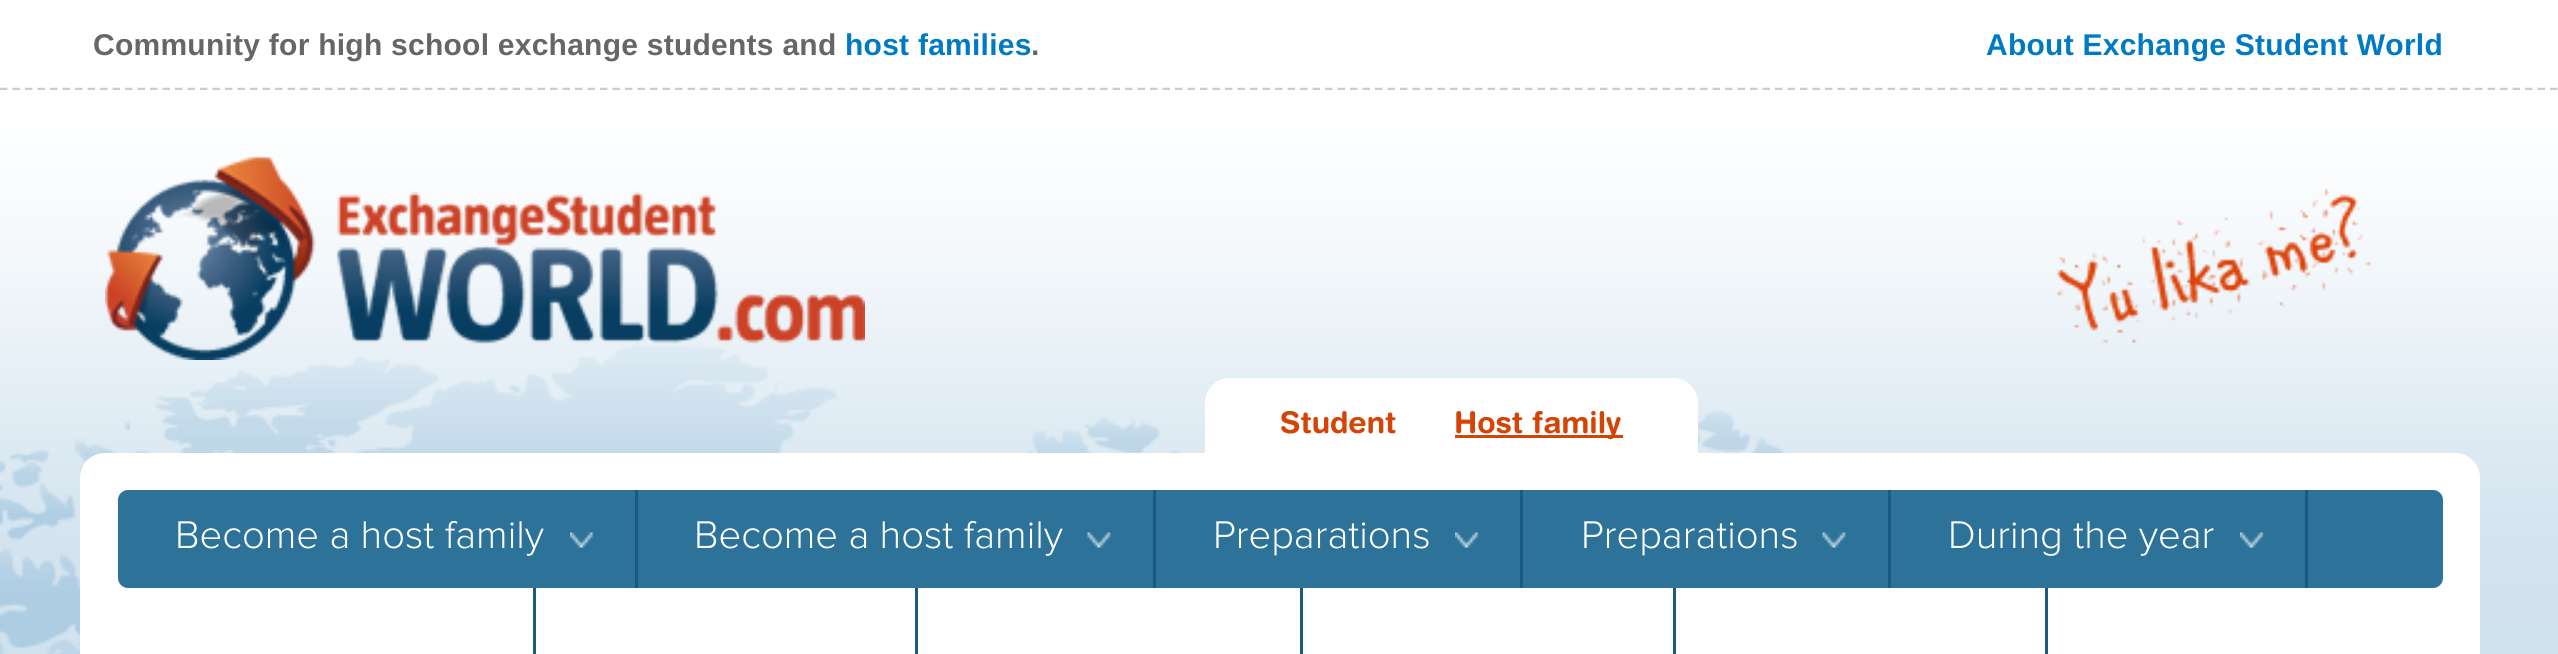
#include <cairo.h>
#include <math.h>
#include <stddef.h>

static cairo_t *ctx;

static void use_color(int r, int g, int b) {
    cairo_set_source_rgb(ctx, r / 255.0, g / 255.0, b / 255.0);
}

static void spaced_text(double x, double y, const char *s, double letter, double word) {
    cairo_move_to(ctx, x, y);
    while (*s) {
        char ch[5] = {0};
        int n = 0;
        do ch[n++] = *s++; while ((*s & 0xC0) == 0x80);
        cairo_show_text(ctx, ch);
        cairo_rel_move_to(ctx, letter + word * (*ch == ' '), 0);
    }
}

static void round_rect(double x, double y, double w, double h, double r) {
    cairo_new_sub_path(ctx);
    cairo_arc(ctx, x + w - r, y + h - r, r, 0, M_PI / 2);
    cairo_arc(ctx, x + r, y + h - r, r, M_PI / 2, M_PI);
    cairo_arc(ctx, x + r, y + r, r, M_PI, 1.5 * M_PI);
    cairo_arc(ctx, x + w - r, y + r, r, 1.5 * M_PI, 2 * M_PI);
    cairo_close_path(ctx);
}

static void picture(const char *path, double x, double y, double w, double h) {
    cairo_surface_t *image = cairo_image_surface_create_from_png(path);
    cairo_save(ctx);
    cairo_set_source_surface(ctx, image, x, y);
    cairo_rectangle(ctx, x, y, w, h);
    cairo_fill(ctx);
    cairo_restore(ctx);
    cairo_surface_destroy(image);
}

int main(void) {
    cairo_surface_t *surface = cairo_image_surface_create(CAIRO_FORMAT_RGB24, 2558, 654);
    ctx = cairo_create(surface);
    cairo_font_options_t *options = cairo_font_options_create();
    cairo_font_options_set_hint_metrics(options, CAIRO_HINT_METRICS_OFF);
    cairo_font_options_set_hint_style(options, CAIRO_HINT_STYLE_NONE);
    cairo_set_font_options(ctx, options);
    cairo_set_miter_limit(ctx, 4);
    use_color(255, 255, 255);
    cairo_paint(ctx);
    picture("img1.png", 0, 100, 2558, 554);
    cairo_new_path(ctx);
    cairo_move_to(ctx, 0, 89);
    cairo_line_to(ctx, 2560, 89);
    use_color(204, 204, 204);
    cairo_set_line_width(ctx, 2.5);
    cairo_set_dash(ctx, (double[]){7.5, 5}, 2, 0);
    cairo_stroke(ctx);
    cairo_select_font_face(ctx, "Liberation Sans", CAIRO_FONT_SLANT_NORMAL, CAIRO_FONT_WEIGHT_BOLD);
    cairo_set_font_size(ctx, 30);
    use_color(102, 102, 102);
    spaced_text(93, 55, "Community for high school exchange students and", 0.25, 0);
    use_color(0, 122, 194);
    spaced_text(845, 55, "host families", 0.25, 0);
    use_color(102, 102, 102);
    spaced_text(1031, 55, ".", 0.25, 0);
    use_color(0, 122, 194);
    spaced_text(1986, 55, "About Exchange Student World", 0.25, 0);
    picture("img2.png", 0, 90, 2558, 423);
    picture("img3.png", 105, 156, 760, 204);
    picture("img4.png", 2056, 187, 315, 157);
    use_color(255, 255, 255);
    round_rect(80, 453, 2400, 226, 25);
    cairo_fill(ctx);
    round_rect(1205, 378, 493, 105, 25);
    cairo_fill(ctx);
    cairo_select_font_face(ctx, "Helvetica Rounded", CAIRO_FONT_SLANT_NORMAL, CAIRO_FONT_WEIGHT_BOLD);
    use_color(211, 68, 5);
    cairo_move_to(ctx, 1280, 433);
    cairo_show_text(ctx, "Student");
    cairo_rectangle(ctx, 1455, 435, 168, 3);
    cairo_fill(ctx);
    cairo_move_to(ctx, 1454, 433);
    cairo_show_text(ctx, "Host family");
    use_color(44, 114, 153);
    round_rect(118, 490, 2325, 98, 10);
    cairo_fill(ctx);
    picture("img5.png", 570, 532, 24, 16);
    use_color(26, 90, 127);
    cairo_rectangle(ctx, 635, 490, 3, 98);
    cairo_fill(ctx);
    cairo_select_font_face(ctx, "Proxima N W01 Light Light", CAIRO_FONT_SLANT_NORMAL, CAIRO_FONT_WEIGHT_NORMAL);
    cairo_set_font_size(ctx, 40);
    use_color(255, 255, 255);
    cairo_move_to(ctx, 175, 548);
    cairo_show_text(ctx, "Become a host family");
    picture("img6.png", 1087, 532, 24, 16);
    use_color(26, 90, 127);
    cairo_rectangle(ctx, 1153, 490, 3, 98);
    cairo_fill(ctx);
    use_color(255, 255, 255);
    cairo_move_to(ctx, 694, 548);
    cairo_show_text(ctx, "Become a host family");
    picture("img7.png", 1455, 532, 24, 16);
    use_color(26, 90, 127);
    cairo_rectangle(ctx, 1520, 490, 3, 98);
    cairo_fill(ctx);
    use_color(255, 255, 255);
    cairo_move_to(ctx, 1213, 548);
    cairo_show_text(ctx, "Preparations");
    picture("img6.png", 1822, 532, 24, 16);
    use_color(26, 90, 127);
    cairo_rectangle(ctx, 1888, 490, 3, 98);
    cairo_fill(ctx);
    use_color(255, 255, 255);
    cairo_move_to(ctx, 1581, 548);
    cairo_show_text(ctx, "Preparations");
    picture("img5.png", 2240, 532, 24, 16);
    use_color(26, 90, 127);
    cairo_rectangle(ctx, 2305, 490, 3, 98);
    cairo_fill(ctx);
    use_color(255, 255, 255);
    cairo_move_to(ctx, 1948, 548);
    cairo_show_text(ctx, "During the year");
    use_color(26, 90, 127);
    cairo_rectangle(ctx, 533, 588, 3, 66);
    cairo_fill(ctx);
    cairo_rectangle(ctx, 915, 588, 3, 66);
    cairo_fill(ctx);
    cairo_rectangle(ctx, 1300, 588, 3, 66);
    cairo_fill(ctx);
    cairo_rectangle(ctx, 1673, 588, 3, 66);
    cairo_fill(ctx);
    cairo_rectangle(ctx, 2045, 588, 3, 66);
    cairo_fill(ctx);
    cairo_surface_write_to_png(surface, "result.png");
    cairo_font_options_destroy(options);
    cairo_destroy(ctx);
    cairo_surface_destroy(surface);
    return 0;
}
